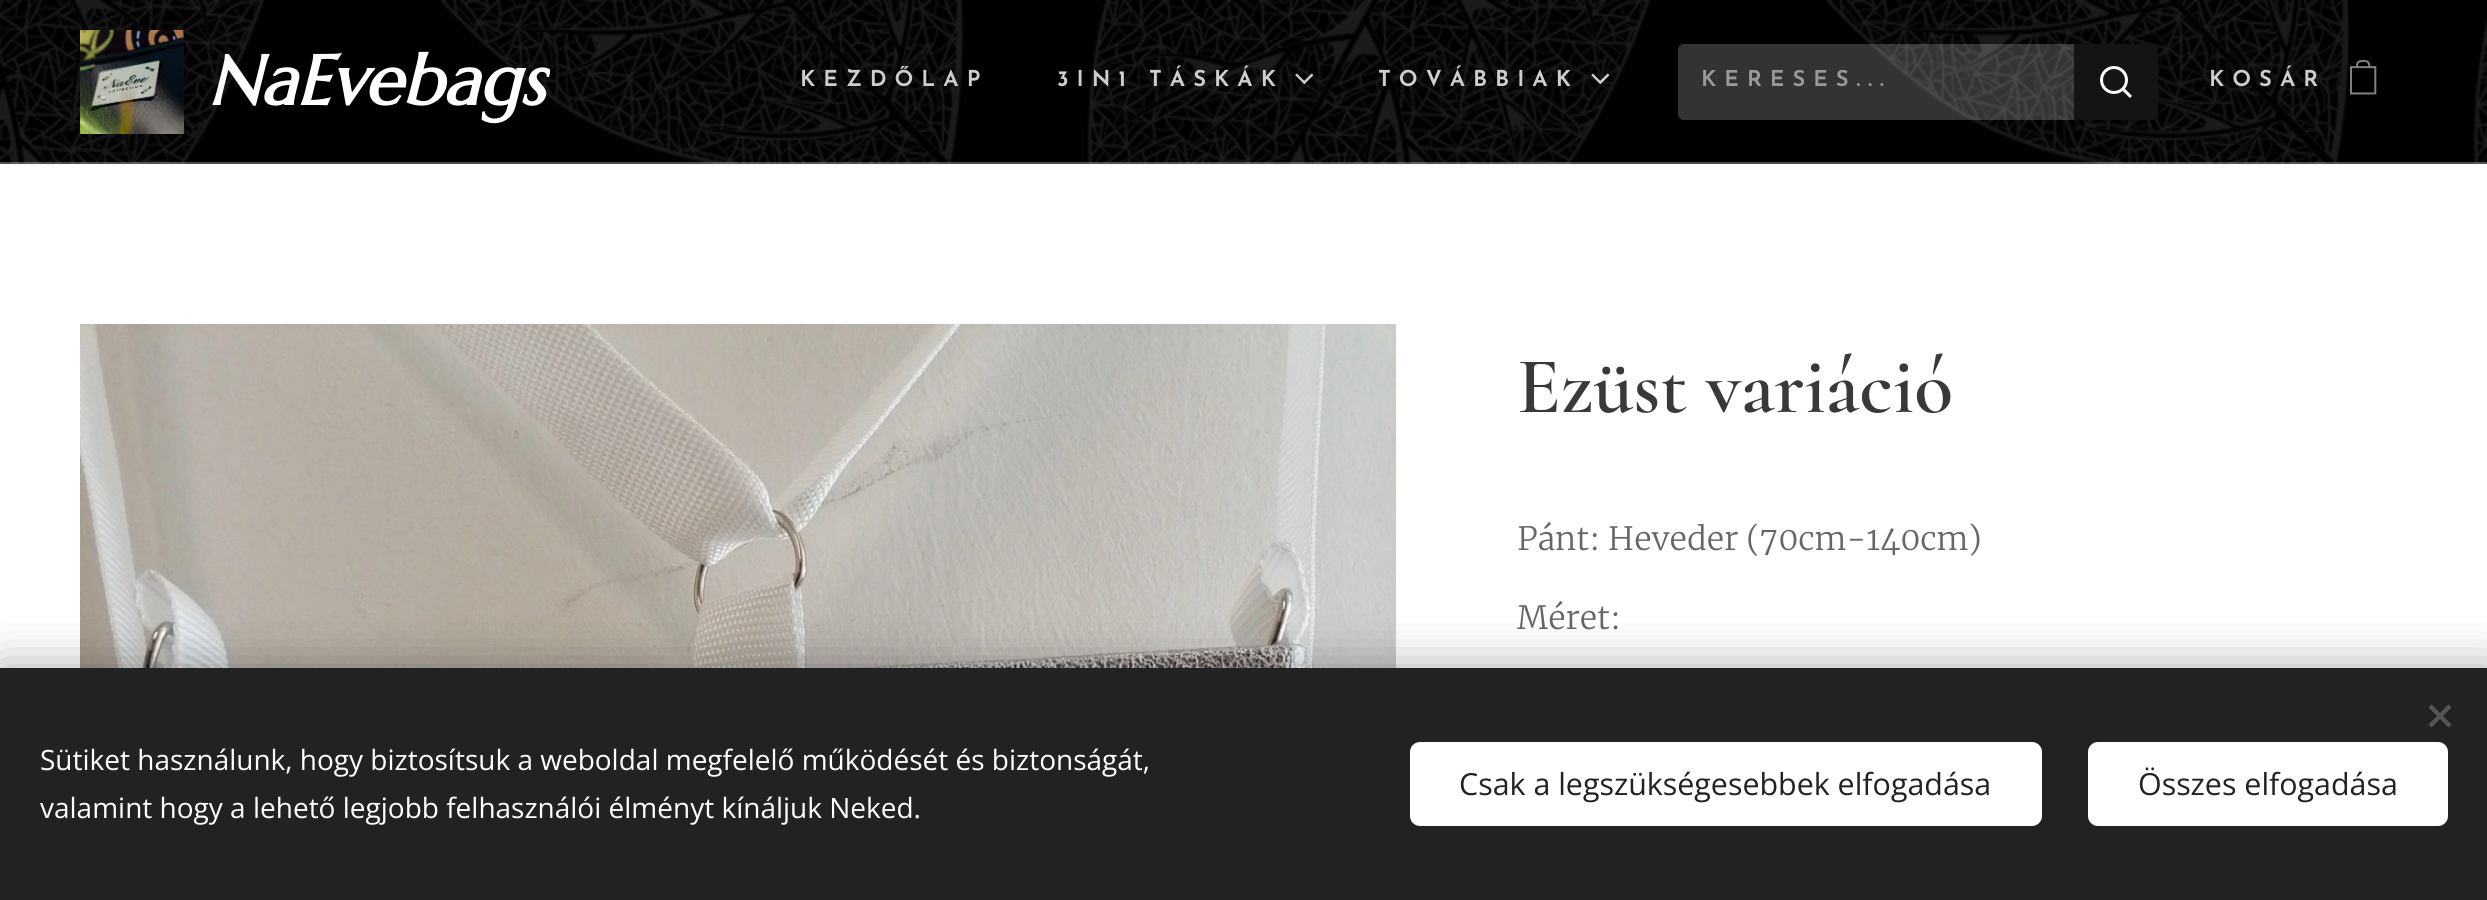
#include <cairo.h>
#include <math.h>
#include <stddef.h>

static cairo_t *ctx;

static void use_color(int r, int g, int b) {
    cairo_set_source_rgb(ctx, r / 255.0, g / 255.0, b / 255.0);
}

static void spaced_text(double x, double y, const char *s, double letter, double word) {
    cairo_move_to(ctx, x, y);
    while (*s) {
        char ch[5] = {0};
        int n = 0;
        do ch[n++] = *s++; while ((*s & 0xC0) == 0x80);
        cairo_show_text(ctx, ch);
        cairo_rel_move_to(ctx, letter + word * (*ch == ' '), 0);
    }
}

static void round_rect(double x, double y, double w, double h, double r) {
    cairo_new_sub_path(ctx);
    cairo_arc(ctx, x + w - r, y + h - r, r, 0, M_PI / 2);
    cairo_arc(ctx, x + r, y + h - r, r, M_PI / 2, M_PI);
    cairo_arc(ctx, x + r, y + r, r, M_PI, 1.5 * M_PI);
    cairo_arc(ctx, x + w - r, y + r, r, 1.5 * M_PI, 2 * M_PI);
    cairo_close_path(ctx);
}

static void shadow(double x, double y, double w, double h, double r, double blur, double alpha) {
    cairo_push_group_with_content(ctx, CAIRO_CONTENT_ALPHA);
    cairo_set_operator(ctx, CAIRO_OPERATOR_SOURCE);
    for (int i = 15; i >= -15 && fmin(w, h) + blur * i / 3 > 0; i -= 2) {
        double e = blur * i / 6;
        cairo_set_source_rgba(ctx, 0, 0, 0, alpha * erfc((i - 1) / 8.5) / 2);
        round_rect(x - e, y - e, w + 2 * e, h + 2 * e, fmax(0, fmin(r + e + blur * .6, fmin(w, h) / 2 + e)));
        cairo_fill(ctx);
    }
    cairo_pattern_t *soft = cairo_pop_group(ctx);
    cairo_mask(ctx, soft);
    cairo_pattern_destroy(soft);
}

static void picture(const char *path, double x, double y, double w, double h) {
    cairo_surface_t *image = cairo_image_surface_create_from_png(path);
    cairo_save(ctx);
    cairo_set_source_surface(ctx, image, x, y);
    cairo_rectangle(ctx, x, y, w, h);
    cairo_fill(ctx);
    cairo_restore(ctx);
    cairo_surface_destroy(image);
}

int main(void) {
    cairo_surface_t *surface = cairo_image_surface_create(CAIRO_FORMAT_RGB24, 2487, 900);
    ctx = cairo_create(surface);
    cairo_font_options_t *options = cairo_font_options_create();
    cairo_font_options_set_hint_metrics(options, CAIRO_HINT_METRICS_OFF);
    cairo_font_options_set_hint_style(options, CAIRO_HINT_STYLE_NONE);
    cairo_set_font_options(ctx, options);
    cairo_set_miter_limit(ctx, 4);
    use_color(255, 255, 255);
    cairo_paint(ctx);
    picture("img1.png", 0, 0, 2487, 164);
    picture("img2.png", 80, 30, 104, 104);
    cairo_select_font_face(ctx, "Marcellus", CAIRO_FONT_SLANT_ITALIC, CAIRO_FONT_WEIGHT_BOLD);
    cairo_set_font_size(ctx, 70);
    use_color(255, 255, 255);
    cairo_move_to(ctx, 208, 105);
    cairo_show_text(ctx, "NaEvebags");
    cairo_select_font_face(ctx, "Josefin Sans SemiBold", CAIRO_FONT_SLANT_NORMAL, CAIRO_FONT_WEIGHT_NORMAL);
    cairo_set_font_size(ctx, 22);
    use_color(206, 206, 206);
    spaced_text(800, 86, "KEZDŐLAP", 8, 0);
    spaced_text(1057, 86, "3IN1 TÁSKÁK", 8, 0);
    picture("img3.png", 1295, 73, 19, 11);
    spaced_text(1378, 86, "TOVÁBBIAK", 8, 0);
    picture("img4.png", 1591, 73, 19, 11);
    cairo_set_source_rgba(ctx, 1, 1, 1, 0.2);
    cairo_new_path(ctx);
    cairo_move_to(ctx, 1684, 44);
    cairo_line_to(ctx, 2074, 44);
    cairo_line_to(ctx, 2074, 120);
    cairo_line_to(ctx, 1684, 120);
    cairo_curve_to(ctx, 1680.5, 120, 1678, 117.5, 1678, 114);
    cairo_line_to(ctx, 1678, 50);
    cairo_curve_to(ctx, 1678, 46.5, 1680.5, 44, 1684, 44);
    cairo_close_path(ctx);
    cairo_fill(ctx);
    cairo_save(ctx);
    cairo_rectangle(ctx, 1700, 70, 354, 22);
    cairo_clip(ctx);
    use_color(153, 153, 153);
    spaced_text(1701, 86, "KERESÉS...", 8, 0);
    cairo_restore(ctx);
    use_color(20, 20, 20);
    cairo_new_path(ctx);
    cairo_move_to(ctx, 2074, 44);
    cairo_line_to(ctx, 2152, 44);
    cairo_curve_to(ctx, 2155.5, 44, 2158, 46.5, 2158, 50);
    cairo_line_to(ctx, 2158, 114);
    cairo_curve_to(ctx, 2158, 117.5, 2155.5, 120, 2152, 120);
    cairo_line_to(ctx, 2074, 120);
    cairo_close_path(ctx);
    cairo_fill(ctx);
    picture("img5.png", 2100, 66, 32, 32);
    use_color(206, 206, 206);
    spaced_text(2209, 86, "KOSÁR", 8, 0);
    picture("img6.png", 2350, 60, 27, 35);
    cairo_set_source_rgba(ctx, 1, 1, 1, 0.3);
    cairo_rectangle(ctx, 0, 162, 2487, 2);
    cairo_fill(ctx);
    picture("img7.png", 80, 324, 1316, 344);
    cairo_select_font_face(ctx, "Cormorant SemiBold", CAIRO_FONT_SLANT_NORMAL, CAIRO_FONT_WEIGHT_NORMAL);
    cairo_set_font_size(ctx, 80);
    use_color(57, 57, 57);
    cairo_move_to(ctx, 1517, 412);
    cairo_show_text(ctx, "Ezüst variáció");
    cairo_select_font_face(ctx, "Merriweather Light", CAIRO_FONT_SLANT_NORMAL, CAIRO_FONT_WEIGHT_NORMAL);
    cairo_set_font_size(ctx, 32);
    use_color(102, 102, 102);
    cairo_move_to(ctx, 1517, 550);
    cairo_show_text(ctx, "Pánt: Heveder (70cm-140cm)");
    cairo_move_to(ctx, 1517, 629);
    cairo_show_text(ctx, "Méret:");
    use_color(0, 0, 0);
    shadow(0, 668, 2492, 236, 0, 25, 0.33);
    use_color(34, 34, 34);
    cairo_rectangle(ctx, 0, 668, 2487, 232);
    cairo_fill(ctx);
    use_color(85, 85, 85);
    cairo_new_path(ctx);
    cairo_move_to(ctx, 2428.5, 724.5);
    cairo_line_to(ctx, 2448.5, 704.5);
    cairo_line_to(ctx, 2451.5, 707.5);
    cairo_line_to(ctx, 2431.5, 727.5);
    cairo_close_path(ctx);
    cairo_fill(ctx);
    cairo_new_path(ctx);
    cairo_move_to(ctx, 2431.5, 704.5);
    cairo_line_to(ctx, 2451.5, 724.5);
    cairo_line_to(ctx, 2448.5, 727.5);
    cairo_line_to(ctx, 2428.5, 707.5);
    cairo_close_path(ctx);
    cairo_fill(ctx);
    cairo_select_font_face(ctx, "Open Sans", CAIRO_FONT_SLANT_NORMAL, CAIRO_FONT_WEIGHT_NORMAL);
    cairo_set_font_size(ctx, 28);
    use_color(255, 255, 255);
    cairo_move_to(ctx, 40, 770);
    cairo_show_text(ctx, "Sütiket használunk, hogy biztosítsuk a weboldal megfelelő működését és biztonságát,");
    cairo_move_to(ctx, 40, 818);
    cairo_show_text(ctx, "valamint hogy a lehető legjobb felhasználói élményt kínáljuk Neked.");
    round_rect(1410, 742, 632, 84, 10);
    cairo_fill(ctx);
    cairo_set_font_size(ctx, 30.4);
    use_color(34, 34, 34);
    cairo_move_to(ctx, 1459, 795);
    cairo_show_text(ctx, "Csak a legszükségesebbek elfogadása");
    use_color(255, 255, 255);
    round_rect(2088, 742, 360, 84, 10);
    cairo_fill(ctx);
    use_color(34, 34, 34);
    cairo_move_to(ctx, 2138, 795);
    cairo_show_text(ctx, "Összes elfogadása");
    cairo_surface_write_to_png(surface, "result.png");
    cairo_font_options_destroy(options);
    cairo_destroy(ctx);
    cairo_surface_destroy(surface);
    return 0;
}
